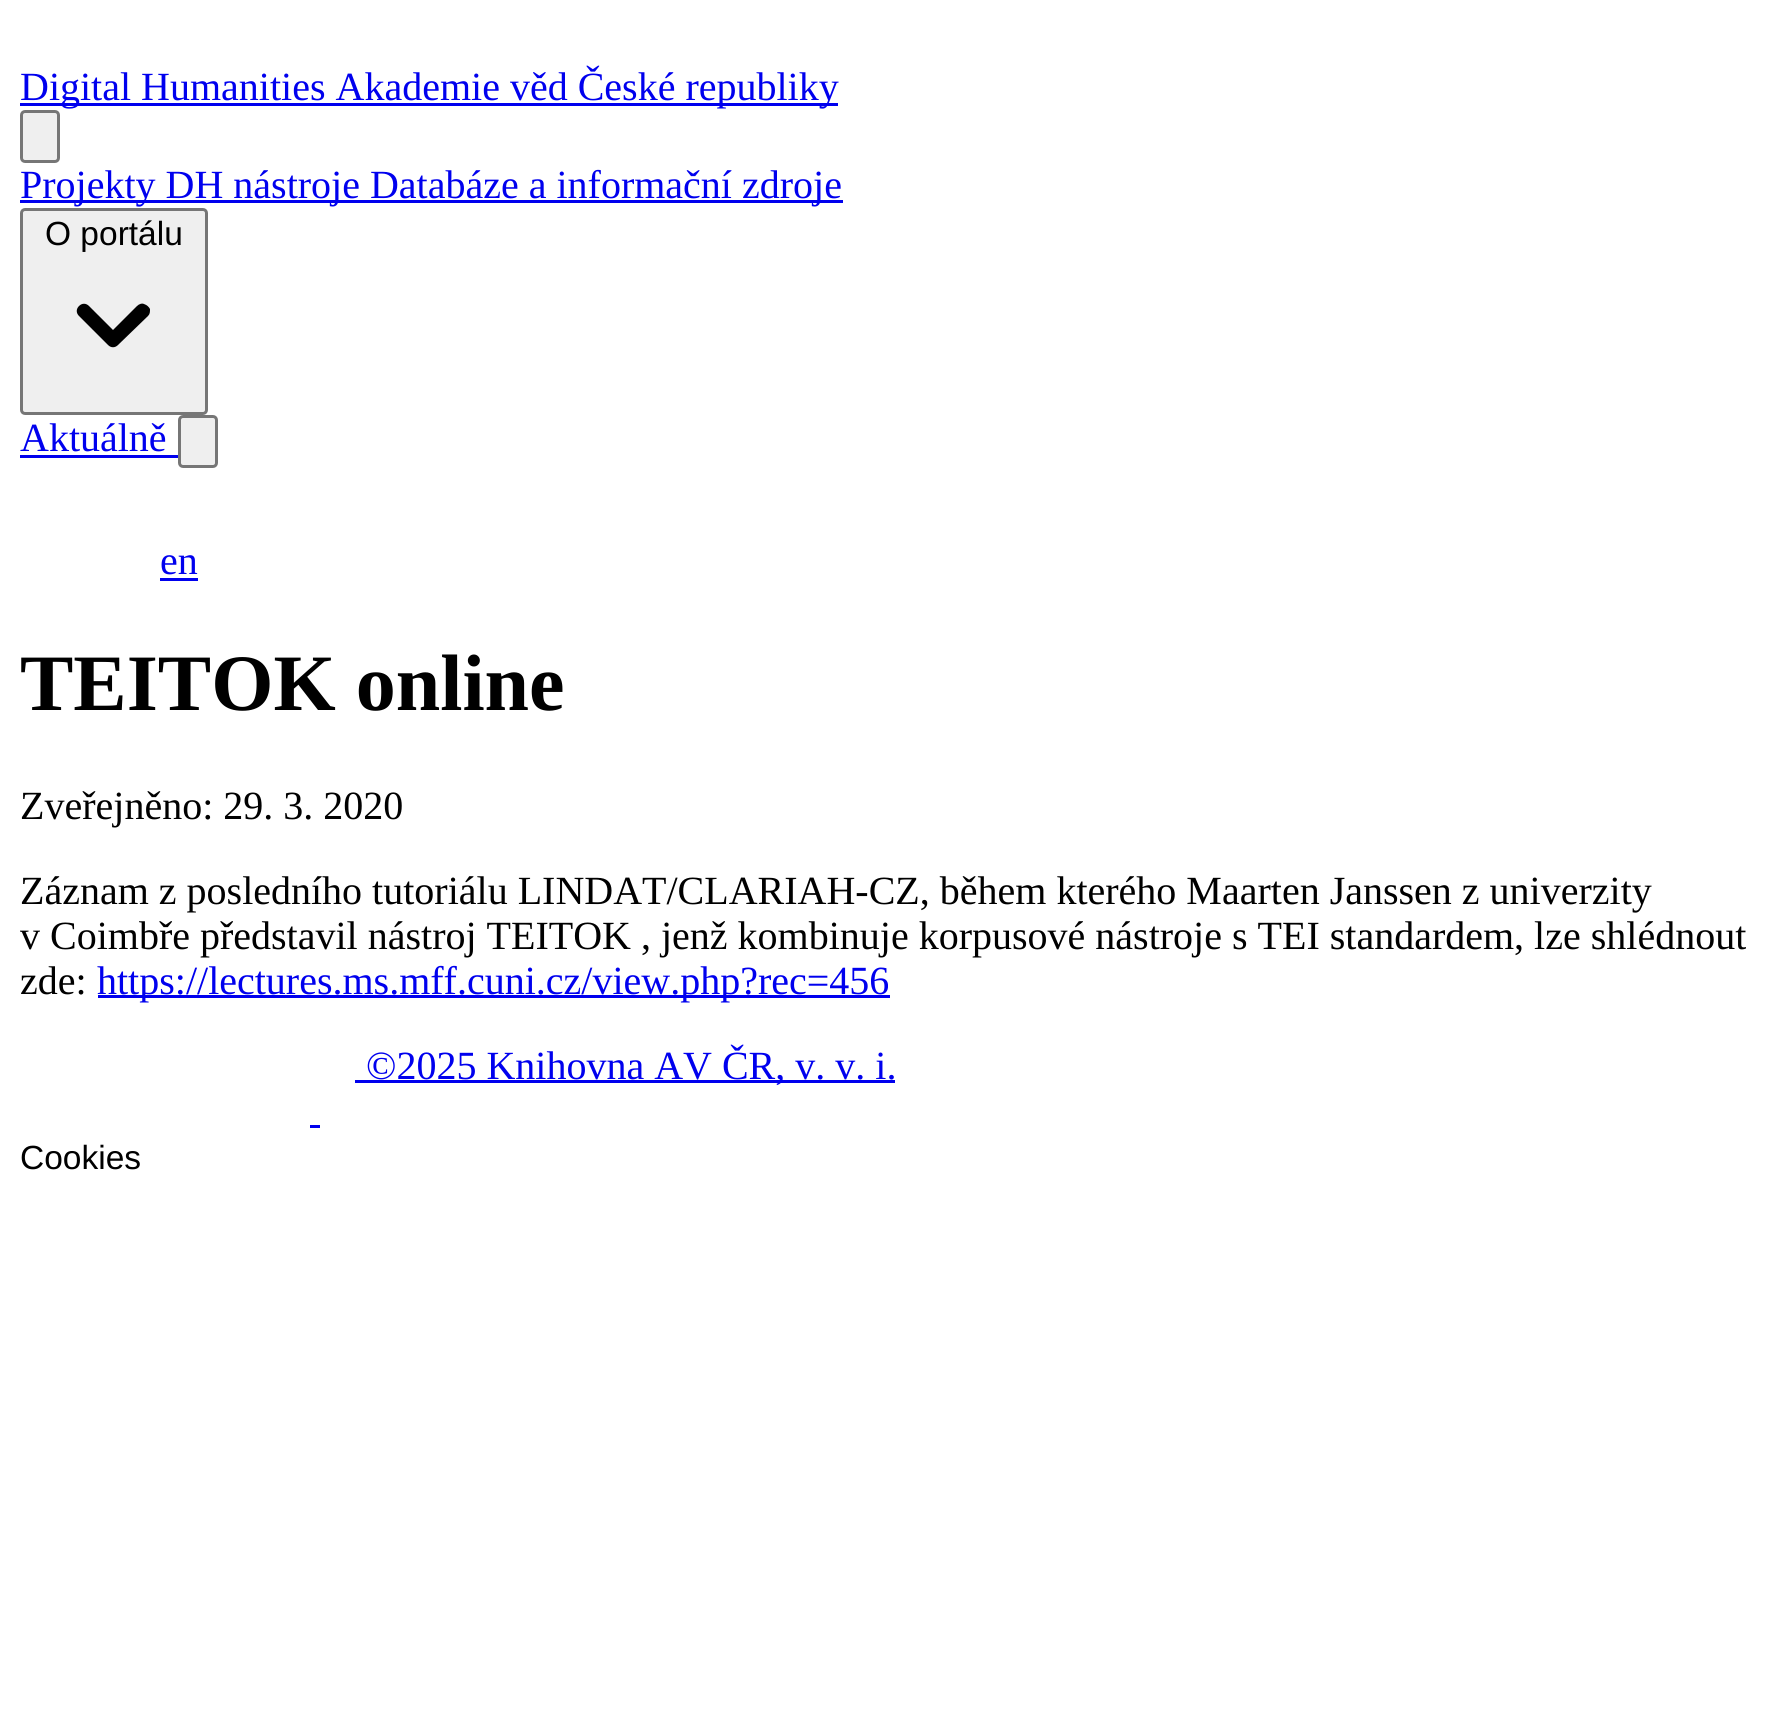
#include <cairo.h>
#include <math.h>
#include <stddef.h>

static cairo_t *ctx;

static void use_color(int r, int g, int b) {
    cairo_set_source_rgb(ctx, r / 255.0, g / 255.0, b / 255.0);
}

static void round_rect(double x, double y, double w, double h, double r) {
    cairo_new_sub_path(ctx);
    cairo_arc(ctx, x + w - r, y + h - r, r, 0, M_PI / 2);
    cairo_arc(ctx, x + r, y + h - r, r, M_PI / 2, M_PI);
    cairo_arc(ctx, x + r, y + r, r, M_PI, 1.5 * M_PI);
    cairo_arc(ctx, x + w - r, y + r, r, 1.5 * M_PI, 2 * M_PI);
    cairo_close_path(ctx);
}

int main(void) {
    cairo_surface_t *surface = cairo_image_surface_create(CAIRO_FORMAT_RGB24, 1773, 1710);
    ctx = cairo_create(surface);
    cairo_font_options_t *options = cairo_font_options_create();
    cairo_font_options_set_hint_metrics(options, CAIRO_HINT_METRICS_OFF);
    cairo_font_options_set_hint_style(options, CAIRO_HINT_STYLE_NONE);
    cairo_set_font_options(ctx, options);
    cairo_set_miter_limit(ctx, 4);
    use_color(255, 255, 255);
    cairo_paint(ctx);
    use_color(0, 0, 238);
    cairo_rectangle(ctx, 20, 103, 818, 3);
    cairo_fill(ctx);
    cairo_select_font_face(ctx, "Liberation Serif", CAIRO_FONT_SLANT_NORMAL, CAIRO_FONT_WEIGHT_NORMAL);
    cairo_set_font_size(ctx, 40);
    cairo_move_to(ctx, 20, 100);
    cairo_show_text(ctx, "Digital Humanities Akademie věd České republiky");
    use_color(239, 239, 239);
    round_rect(21.5, 111.5, 37, 50, 3.5);
    cairo_fill_preserve(ctx);
    use_color(118, 118, 118);
    cairo_set_line_width(ctx, 3);
    cairo_stroke(ctx);
    use_color(0, 0, 238);
    cairo_rectangle(ctx, 20, 200, 823, 3);
    cairo_fill(ctx);
    cairo_move_to(ctx, 20, 198);
    cairo_show_text(ctx, "Projekty DH nástroje Databáze a informační zdroje");
    use_color(239, 239, 239);
    round_rect(21.5, 209.5, 185, 204, 3.5);
    cairo_fill_preserve(ctx);
    use_color(118, 118, 118);
    cairo_stroke(ctx);
    cairo_select_font_face(ctx, "Liberation Sans", CAIRO_FONT_SLANT_NORMAL, CAIRO_FONT_WEIGHT_NORMAL);
    cairo_set_font_size(ctx, 33.5);
    use_color(0, 0, 0);
    cairo_move_to(ctx, 45, 245);
    cairo_show_text(ctx, "O portálu");
    cairo_set_fill_rule(ctx, CAIRO_FILL_RULE_EVEN_ODD);
    cairo_new_path(ctx);
    cairo_move_to(ctx, 79, 306);
    cairo_curve_to(ctx, 82, 303, 86, 303, 89, 306);
    cairo_line_to(ctx, 113, 330);
    cairo_line_to(ctx, 137, 306);
    cairo_curve_to(ctx, 139, 304, 142, 303, 144, 304);
    cairo_curve_to(ctx, 147, 305, 149, 307, 150, 309);
    cairo_curve_to(ctx, 150, 312, 150, 314, 148, 316);
    cairo_line_to(ctx, 118, 345);
    cairo_curve_to(ctx, 115, 348, 111, 348, 108, 345);
    cairo_line_to(ctx, 79, 316);
    cairo_curve_to(ctx, 76, 313, 76, 309, 79, 306);
    cairo_close_path(ctx);
    cairo_fill(ctx);
    cairo_select_font_face(ctx, "Liberation Serif", CAIRO_FONT_SLANT_NORMAL, CAIRO_FONT_WEIGHT_NORMAL);
    cairo_set_font_size(ctx, 40);
    use_color(0, 0, 238);
    cairo_move_to(ctx, 20, 451);
    cairo_show_text(ctx, "Aktuálně");
    cairo_rectangle(ctx, 20, 455, 158, 3);
    cairo_fill(ctx);
    use_color(239, 239, 239);
    round_rect(179.5, 416.5, 37, 50, 3.5);
    cairo_fill_preserve(ctx);
    use_color(118, 118, 118);
    cairo_stroke(ctx);
    use_color(0, 0, 238);
    cairo_move_to(ctx, 160, 574);
    cairo_show_text(ctx, "en");
    cairo_rectangle(ctx, 160, 578, 38, 3);
    cairo_fill(ctx);
    cairo_select_font_face(ctx, "Liberation Serif", CAIRO_FONT_SLANT_NORMAL, CAIRO_FONT_WEIGHT_BOLD);
    cairo_set_font_size(ctx, 80);
    use_color(0, 0, 0);
    cairo_move_to(ctx, 20, 710);
    cairo_show_text(ctx, "TEITOK online");
    cairo_select_font_face(ctx, "Liberation Serif", CAIRO_FONT_SLANT_NORMAL, CAIRO_FONT_WEIGHT_NORMAL);
    cairo_set_font_size(ctx, 40);
    cairo_move_to(ctx, 20, 819);
    cairo_show_text(ctx, "Zveřejněno: 29. 3. 2020");
    cairo_move_to(ctx, 20, 904);
    cairo_show_text(ctx, "Záznam z posledního tutoriálu LINDAT/CLARIAH-CZ, během kterého Maarten Janssen z univerzity");
    cairo_move_to(ctx, 20, 949);
    cairo_show_text(ctx, "v Coimbře představil nástroj TEITOK , jenž kombinuje korpusové nástroje s TEI standardem, lze shlédnout");
    cairo_move_to(ctx, 20, 994);
    cairo_show_text(ctx, "zde:");
    use_color(0, 0, 238);
    cairo_rectangle(ctx, 98, 995, 792, 3);
    cairo_fill(ctx);
    cairo_move_to(ctx, 97, 994);
    cairo_show_text(ctx, "https://lectures.ms.mff.cuni.cz/view.php?rec=456");
    cairo_rectangle(ctx, 355, 1080, 540, 3);
    cairo_fill(ctx);
    cairo_move_to(ctx, 366, 1079);
    cairo_show_text(ctx, "©2025 Knihovna AV ČR, v. v. i.");
    cairo_rectangle(ctx, 310, 1125, 10, 3);
    cairo_fill(ctx);
    cairo_select_font_face(ctx, "Liberation Sans", CAIRO_FONT_SLANT_NORMAL, CAIRO_FONT_WEIGHT_NORMAL);
    cairo_set_font_size(ctx, 33.5);
    use_color(0, 0, 0);
    cairo_move_to(ctx, 20, 1169);
    cairo_show_text(ctx, "Cookies");
    cairo_surface_write_to_png(surface, "result.png");
    cairo_font_options_destroy(options);
    cairo_destroy(ctx);
    cairo_surface_destroy(surface);
    return 0;
}
